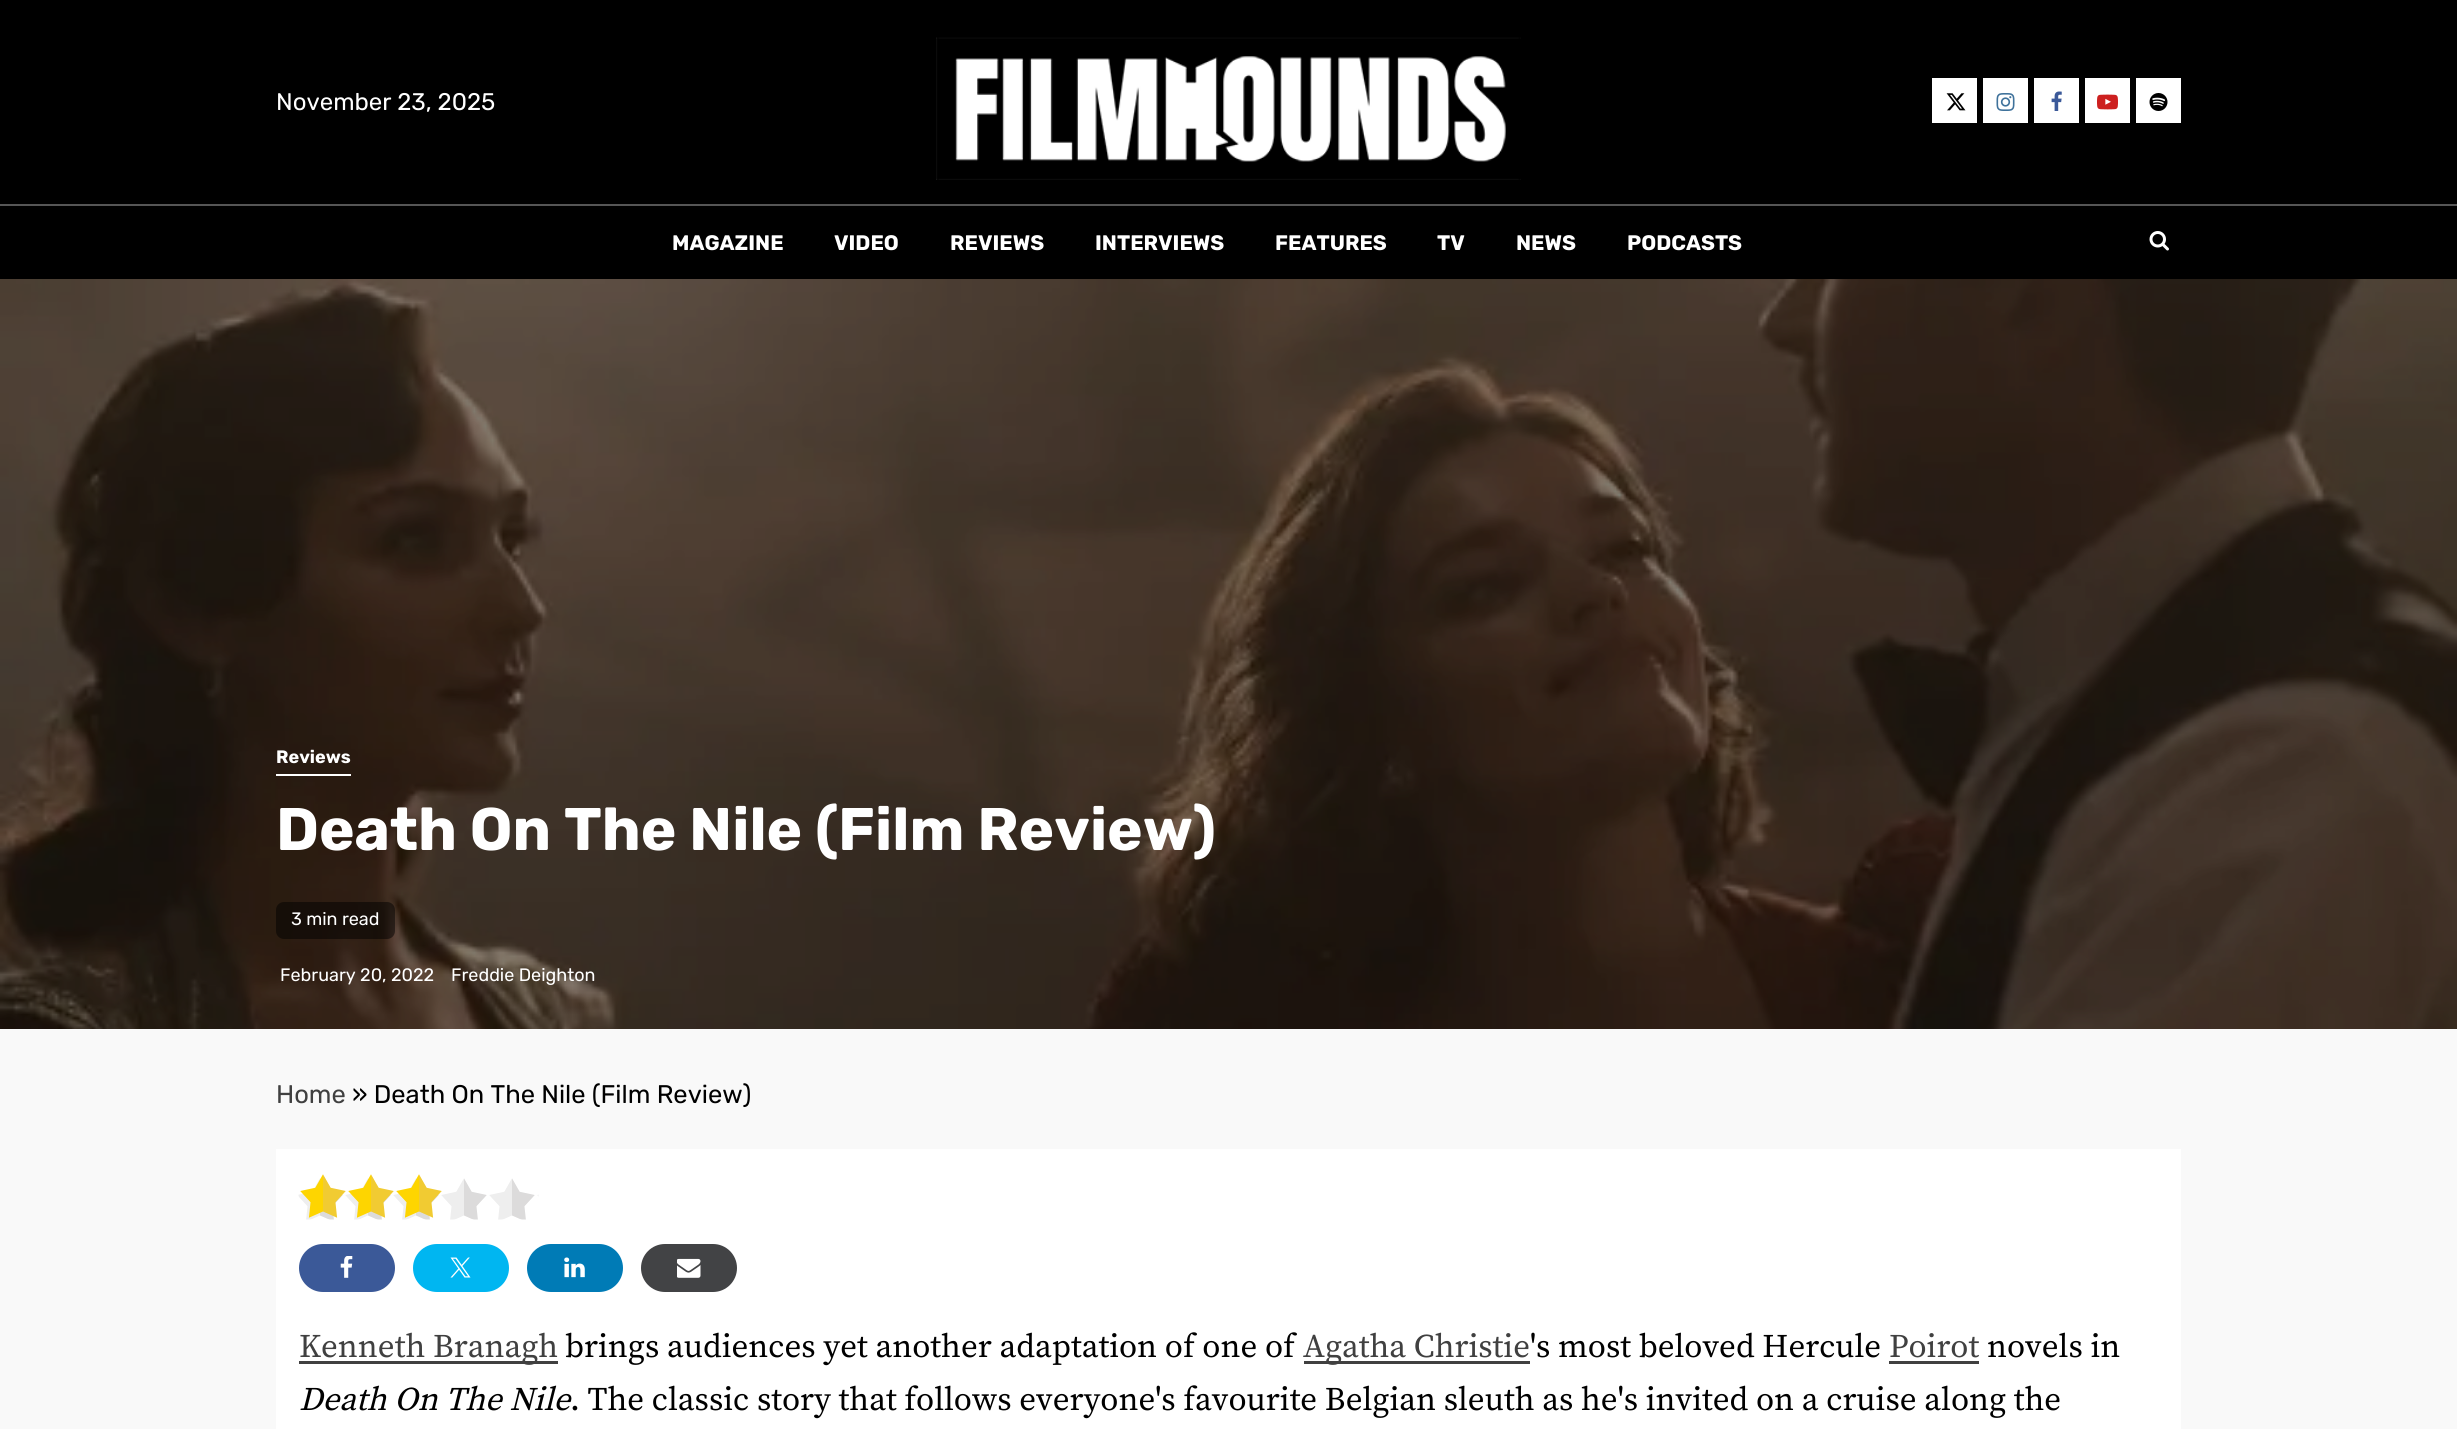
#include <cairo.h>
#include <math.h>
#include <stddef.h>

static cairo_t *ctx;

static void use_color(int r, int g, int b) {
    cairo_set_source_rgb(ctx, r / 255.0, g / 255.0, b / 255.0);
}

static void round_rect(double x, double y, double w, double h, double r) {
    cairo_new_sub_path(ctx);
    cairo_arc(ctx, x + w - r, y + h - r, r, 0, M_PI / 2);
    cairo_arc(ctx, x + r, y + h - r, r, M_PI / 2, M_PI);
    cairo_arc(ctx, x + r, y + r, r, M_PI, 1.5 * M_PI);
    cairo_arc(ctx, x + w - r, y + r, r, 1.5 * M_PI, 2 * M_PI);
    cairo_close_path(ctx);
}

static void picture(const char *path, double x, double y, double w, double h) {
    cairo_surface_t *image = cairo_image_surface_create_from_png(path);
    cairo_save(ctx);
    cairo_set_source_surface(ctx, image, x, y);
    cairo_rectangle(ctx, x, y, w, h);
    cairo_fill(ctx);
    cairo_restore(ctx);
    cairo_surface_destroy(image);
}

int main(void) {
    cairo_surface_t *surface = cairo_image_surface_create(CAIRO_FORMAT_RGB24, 2457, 1429);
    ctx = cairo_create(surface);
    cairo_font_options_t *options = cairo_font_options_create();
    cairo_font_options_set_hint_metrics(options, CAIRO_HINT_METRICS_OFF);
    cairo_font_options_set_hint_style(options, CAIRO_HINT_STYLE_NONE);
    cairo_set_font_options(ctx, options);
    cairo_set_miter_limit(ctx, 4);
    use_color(249, 249, 249);
    cairo_paint(ctx);
    use_color(0, 0, 0);
    cairo_rectangle(ctx, 0, 0, 2457, 204);
    cairo_fill(ctx);
    use_color(86, 86, 86);
    cairo_rectangle(ctx, 0, 204, 2457, 2);
    cairo_fill(ctx);
    cairo_select_font_face(ctx, "Rubik", CAIRO_FONT_SLANT_NORMAL, CAIRO_FONT_WEIGHT_NORMAL);
    cairo_set_font_size(ctx, 24);
    use_color(255, 255, 255);
    cairo_move_to(ctx, 276, 110);
    cairo_show_text(ctx, "November 23, 2025");
    picture("img1.png", 936, 37, 585, 143);
    cairo_rectangle(ctx, 1932, 78, 45, 45);
    cairo_fill(ctx);
    picture("img2.png", 1946, 93, 20, 18);
    cairo_rectangle(ctx, 1983, 78, 45, 45);
    cairo_fill(ctx);
    picture("img3.png", 1996, 93, 19, 18);
    cairo_rectangle(ctx, 2034, 78, 45, 45);
    cairo_fill(ctx);
    picture("img4.png", 2051, 91, 11, 20);
    cairo_rectangle(ctx, 2085, 78, 45, 45);
    cairo_fill(ctx);
    picture("img5.png", 2097, 94, 21, 16);
    cairo_rectangle(ctx, 2136, 78, 45, 45);
    cairo_fill(ctx);
    picture("img6.png", 2149, 93, 19, 18);
    use_color(0, 0, 0);
    cairo_rectangle(ctx, 0, 206, 2457, 73);
    cairo_fill(ctx);
    cairo_select_font_face(ctx, "Rubik", CAIRO_FONT_SLANT_NORMAL, CAIRO_FONT_WEIGHT_BOLD);
    cairo_set_font_size(ctx, 21);
    use_color(255, 255, 255);
    cairo_move_to(ctx, 672, 250);
    cairo_show_text(ctx, "MAGAZINE");
    cairo_move_to(ctx, 834, 250);
    cairo_show_text(ctx, "VIDEO");
    cairo_move_to(ctx, 950, 250);
    cairo_show_text(ctx, "REVIEWS");
    cairo_move_to(ctx, 1095, 250);
    cairo_show_text(ctx, "INTERVIEWS");
    cairo_move_to(ctx, 1275, 250);
    cairo_show_text(ctx, "FEATURES");
    cairo_move_to(ctx, 1437, 250);
    cairo_show_text(ctx, "TV");
    cairo_move_to(ctx, 1516, 250);
    cairo_show_text(ctx, "NEWS");
    cairo_move_to(ctx, 1627, 250);
    cairo_show_text(ctx, "PODCASTS");
    picture("img7.png", 2149, 231, 20, 20);
    picture("img8.png", 0, 279, 2457, 750);
    cairo_rectangle(ctx, 276, 774, 75, 2);
    cairo_fill(ctx);
    cairo_set_font_size(ctx, 18);
    cairo_move_to(ctx, 276, 763);
    cairo_show_text(ctx, "Reviews");
    cairo_set_font_size(ctx, 60);
    cairo_move_to(ctx, 276, 850);
    cairo_show_text(ctx, "Death On The Nile (Film Review)");
    cairo_set_source_rgba(ctx, 0, 0, 0, 0.5);
    round_rect(276, 902, 119, 37, 8);
    cairo_fill(ctx);
    cairo_select_font_face(ctx, "Rubik", CAIRO_FONT_SLANT_NORMAL, CAIRO_FONT_WEIGHT_NORMAL);
    cairo_set_font_size(ctx, 18);
    use_color(255, 255, 255);
    cairo_move_to(ctx, 291, 925);
    cairo_show_text(ctx, "3 min read");
    cairo_move_to(ctx, 280, 981);
    cairo_show_text(ctx, "February 20, 2022");
    cairo_move_to(ctx, 451, 981);
    cairo_show_text(ctx, "Freddie Deighton");
    cairo_set_font_size(ctx, 25.5);
    use_color(64, 64, 64);
    cairo_move_to(ctx, 276, 1103);
    cairo_show_text(ctx, "Home");
    use_color(0, 0, 0);
    cairo_move_to(ctx, 352, 1103);
    cairo_show_text(ctx, "» Death On The Nile (Film Review)");
    use_color(255, 255, 255);
    cairo_rectangle(ctx, 276, 1149, 1905, 280);
    cairo_fill(ctx);
    picture("img9.png", 298, 1178, 241, 42);
    picture("img10.png", 300, 1174, 142, 44);
    use_color(59, 89, 152);
    round_rect(299, 1244, 96, 48, 24);
    cairo_fill(ctx);
    picture("img11.png", 340, 1256, 13, 22);
    use_color(0, 182, 241);
    round_rect(413, 1244, 96, 48, 24);
    cairo_fill(ctx);
    picture("img12.png", 450, 1257, 21, 21);
    use_color(0, 123, 182);
    round_rect(527, 1244, 96, 48, 24);
    cairo_fill(ctx);
    picture("img13.png", 564, 1257, 21, 21);
    use_color(66, 67, 69);
    round_rect(641, 1244, 96, 48, 24);
    cairo_fill(ctx);
    picture("img14.png", 677, 1258, 24, 20);
    use_color(64, 64, 64);
    cairo_rectangle(ctx, 299, 1361, 259, 3);
    cairo_fill(ctx);
    cairo_select_font_face(ctx, "Source Serif Pro", CAIRO_FONT_SLANT_NORMAL, CAIRO_FONT_WEIGHT_NORMAL);
    cairo_set_font_size(ctx, 33);
    cairo_move_to(ctx, 299, 1357);
    cairo_show_text(ctx, "Kenneth Branagh");
    use_color(0, 0, 0);
    cairo_move_to(ctx, 565, 1357);
    cairo_show_text(ctx, "brings audiences yet another adaptation of one of");
    use_color(64, 64, 64);
    cairo_rectangle(ctx, 1304, 1361, 226, 3);
    cairo_fill(ctx);
    cairo_move_to(ctx, 1303, 1357);
    cairo_show_text(ctx, "Agatha Christie");
    use_color(0, 0, 0);
    cairo_move_to(ctx, 1530, 1357);
    cairo_show_text(ctx, "'s most beloved Hercule");
    use_color(64, 64, 64);
    cairo_move_to(ctx, 1889, 1357);
    cairo_show_text(ctx, "Poirot");
    cairo_rectangle(ctx, 1889, 1361, 90, 3);
    cairo_fill(ctx);
    use_color(0, 0, 0);
    cairo_move_to(ctx, 1987, 1357);
    cairo_show_text(ctx, "novels in");
    cairo_select_font_face(ctx, "Source Serif Pro", CAIRO_FONT_SLANT_ITALIC, CAIRO_FONT_WEIGHT_NORMAL);
    cairo_move_to(ctx, 299, 1410);
    cairo_show_text(ctx, "Death On The Nile");
    cairo_select_font_face(ctx, "Source Serif Pro", CAIRO_FONT_SLANT_NORMAL, CAIRO_FONT_WEIGHT_NORMAL);
    cairo_move_to(ctx, 570, 1410);
    cairo_show_text(ctx, ". The classic story that follows everyone's favourite Belgian sleuth as he's invited on a cruise along the");
    cairo_surface_write_to_png(surface, "result.png");
    cairo_font_options_destroy(options);
    cairo_destroy(ctx);
    cairo_surface_destroy(surface);
    return 0;
}
